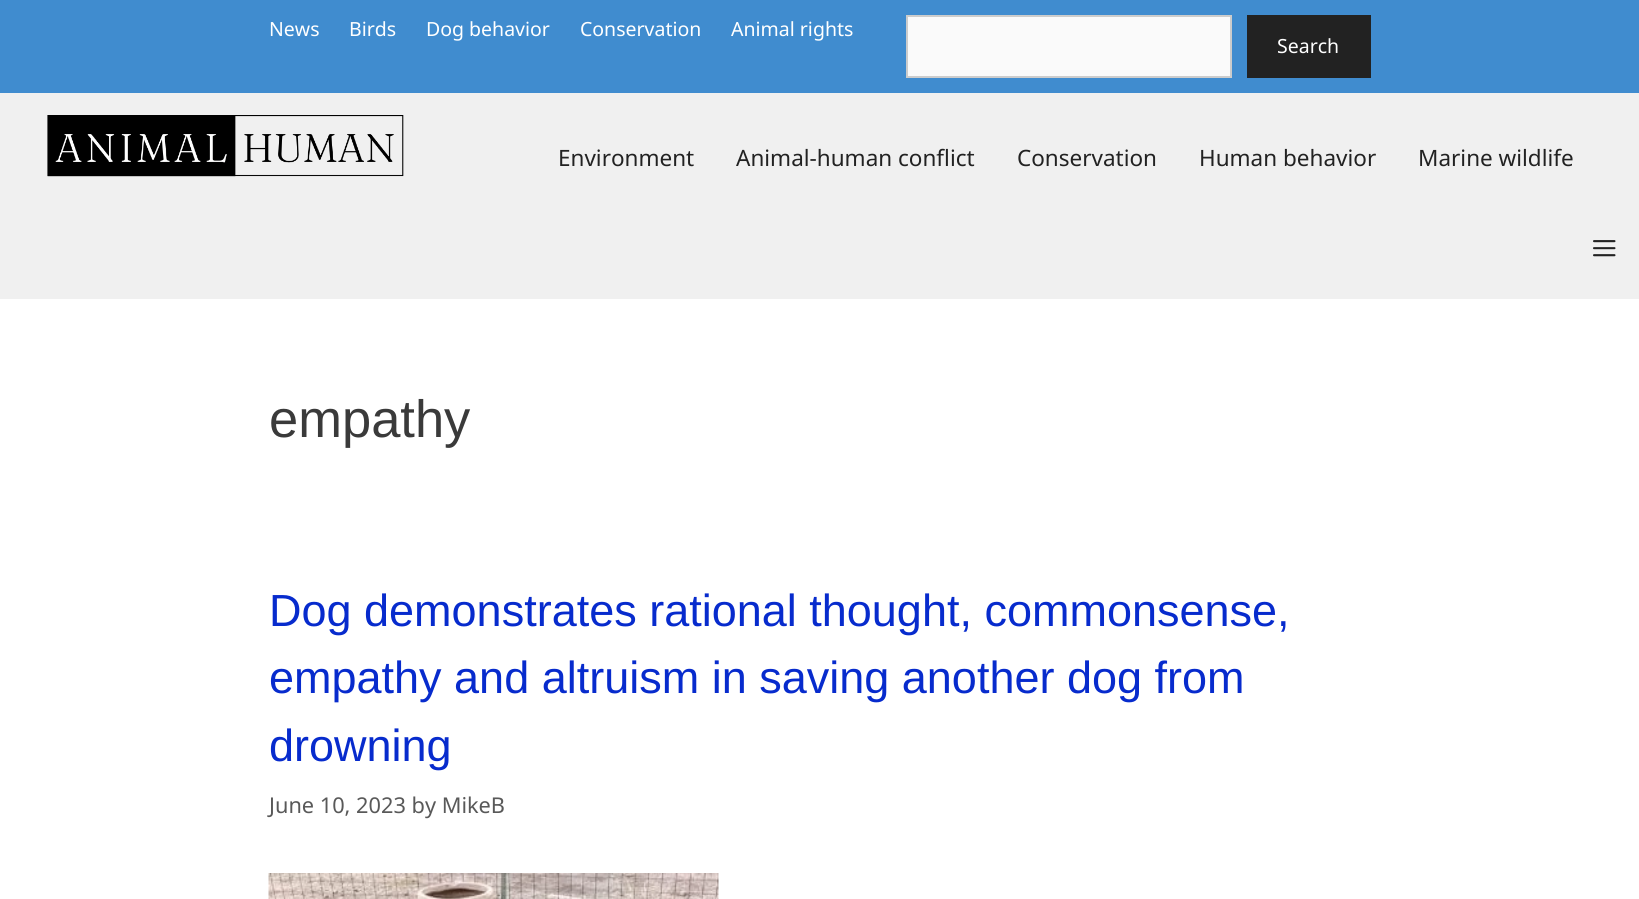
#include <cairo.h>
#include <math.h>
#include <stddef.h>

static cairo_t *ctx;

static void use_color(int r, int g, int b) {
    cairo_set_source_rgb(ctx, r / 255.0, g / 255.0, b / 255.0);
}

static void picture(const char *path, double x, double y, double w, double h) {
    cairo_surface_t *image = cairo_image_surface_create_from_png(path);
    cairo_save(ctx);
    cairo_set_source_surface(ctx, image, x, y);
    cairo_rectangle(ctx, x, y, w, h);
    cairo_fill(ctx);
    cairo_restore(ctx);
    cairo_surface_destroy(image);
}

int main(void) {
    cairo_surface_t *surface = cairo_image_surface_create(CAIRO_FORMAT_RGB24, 1639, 899);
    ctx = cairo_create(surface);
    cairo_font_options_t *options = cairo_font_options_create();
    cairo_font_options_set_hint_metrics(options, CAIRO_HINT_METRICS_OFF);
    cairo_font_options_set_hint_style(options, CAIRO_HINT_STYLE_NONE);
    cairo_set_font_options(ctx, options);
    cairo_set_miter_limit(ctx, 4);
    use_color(255, 255, 255);
    cairo_paint(ctx);
    use_color(64, 140, 207);
    cairo_rectangle(ctx, 0, 0, 1639, 93);
    cairo_fill(ctx);
    cairo_select_font_face(ctx, "Noto Sans", CAIRO_FONT_SLANT_NORMAL, CAIRO_FONT_WEIGHT_NORMAL);
    cairo_set_font_size(ctx, 19.5);
    use_color(255, 255, 255);
    cairo_move_to(ctx, 269, 36);
    cairo_show_text(ctx, "News");
    cairo_move_to(ctx, 349, 36);
    cairo_show_text(ctx, "Birds");
    cairo_move_to(ctx, 426, 36);
    cairo_show_text(ctx, "Dog behavior");
    cairo_move_to(ctx, 580, 36);
    cairo_show_text(ctx, "Conservation");
    cairo_move_to(ctx, 731, 36);
    cairo_show_text(ctx, "Animal rights");
    use_color(250, 250, 250);
    cairo_rectangle(ctx, 907, 16, 324, 61);
    cairo_fill_preserve(ctx);
    use_color(204, 204, 204);
    cairo_stroke(ctx);
    use_color(34, 34, 34);
    cairo_rectangle(ctx, 1247, 15, 124, 63);
    cairo_fill(ctx);
    use_color(255, 255, 255);
    cairo_move_to(ctx, 1277, 53);
    cairo_show_text(ctx, "Search");
    use_color(240, 240, 240);
    cairo_rectangle(ctx, 0, 93, 1639, 206);
    cairo_fill(ctx);
    picture("img1.png", 47, 115, 357, 62);
    cairo_set_font_size(ctx, 22.5);
    use_color(34, 34, 34);
    cairo_move_to(ctx, 558, 166);
    cairo_show_text(ctx, "Environment");
    cairo_move_to(ctx, 736, 166);
    cairo_show_text(ctx, "Animal-human conflict");
    cairo_move_to(ctx, 1017, 166);
    cairo_show_text(ctx, "Conservation");
    cairo_move_to(ctx, 1199, 166);
    cairo_show_text(ctx, "Human behavior");
    cairo_move_to(ctx, 1418, 166);
    cairo_show_text(ctx, "Marine wildlife");
    picture("img2.png", 1593, 240, 23, 17);
    cairo_select_font_face(ctx, "Liberation Sans", CAIRO_FONT_SLANT_NORMAL, CAIRO_FONT_WEIGHT_NORMAL);
    cairo_set_font_size(ctx, 52.5);
    use_color(58, 58, 58);
    cairo_move_to(ctx, 269, 437);
    cairo_show_text(ctx, "empathy");
    cairo_set_font_size(ctx, 45);
    use_color(7, 43, 205);
    cairo_move_to(ctx, 269, 626);
    cairo_show_text(ctx, "Dog demonstrates rational thought, commonsense,");
    cairo_move_to(ctx, 269, 693);
    cairo_show_text(ctx, "empathy and altruism in saving another dog from");
    cairo_move_to(ctx, 269, 761);
    cairo_show_text(ctx, "drowning");
    cairo_select_font_face(ctx, "Noto Sans", CAIRO_FONT_SLANT_NORMAL, CAIRO_FONT_WEIGHT_NORMAL);
    cairo_set_font_size(ctx, 21.75);
    use_color(89, 89, 89);
    cairo_move_to(ctx, 269, 813);
    cairo_show_text(ctx, "June 10, 2023 by MikeB");
    picture("img3.png", 268, 873, 451, 26);
    cairo_surface_write_to_png(surface, "result.png");
    cairo_font_options_destroy(options);
    cairo_destroy(ctx);
    cairo_surface_destroy(surface);
    return 0;
}
